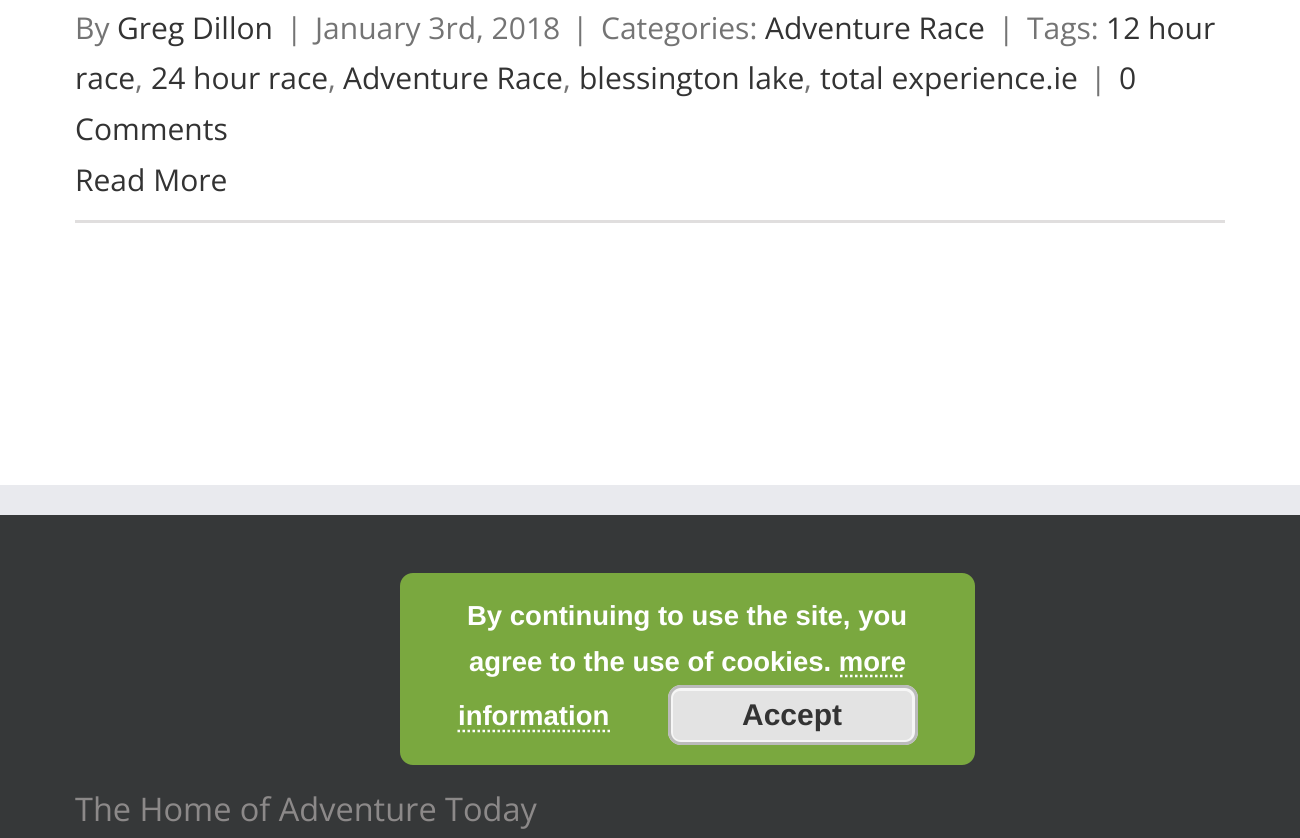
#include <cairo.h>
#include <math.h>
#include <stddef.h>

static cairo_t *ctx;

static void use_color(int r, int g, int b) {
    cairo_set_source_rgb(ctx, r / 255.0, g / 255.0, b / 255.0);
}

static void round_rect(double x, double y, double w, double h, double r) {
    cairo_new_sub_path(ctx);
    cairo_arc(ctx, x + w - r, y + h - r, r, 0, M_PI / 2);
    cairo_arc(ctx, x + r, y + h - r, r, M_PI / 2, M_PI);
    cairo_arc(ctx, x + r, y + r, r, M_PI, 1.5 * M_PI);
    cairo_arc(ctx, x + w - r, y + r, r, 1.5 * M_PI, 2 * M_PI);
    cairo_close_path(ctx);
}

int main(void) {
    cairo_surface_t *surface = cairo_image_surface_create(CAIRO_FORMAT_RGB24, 1300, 838);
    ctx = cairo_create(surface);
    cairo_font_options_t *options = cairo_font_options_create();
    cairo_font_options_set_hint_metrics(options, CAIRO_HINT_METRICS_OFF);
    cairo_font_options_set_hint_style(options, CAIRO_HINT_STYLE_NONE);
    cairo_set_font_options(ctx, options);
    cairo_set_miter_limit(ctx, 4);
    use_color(255, 255, 255);
    cairo_paint(ctx);
    use_color(224, 222, 222);
    cairo_rectangle(ctx, 75, 220, 1150, 3);
    cairo_fill(ctx);
    cairo_select_font_face(ctx, "Open Sans", CAIRO_FONT_SLANT_NORMAL, CAIRO_FONT_WEIGHT_NORMAL);
    cairo_set_font_size(ctx, 30);
    use_color(116, 116, 116);
    cairo_move_to(ctx, 75, 39);
    cairo_show_text(ctx, "By");
    use_color(51, 51, 51);
    cairo_move_to(ctx, 117, 39);
    cairo_show_text(ctx, "Greg Dillon");
    use_color(116, 116, 116);
    cairo_move_to(ctx, 286, 39);
    cairo_show_text(ctx, "|");
    cairo_move_to(ctx, 315, 39);
    cairo_show_text(ctx, "January 3rd, 2018");
    cairo_move_to(ctx, 572, 39);
    cairo_show_text(ctx, "|");
    cairo_move_to(ctx, 601, 39);
    cairo_show_text(ctx, "Categories:");
    use_color(51, 51, 51);
    cairo_move_to(ctx, 765, 39);
    cairo_show_text(ctx, "Adventure Race");
    use_color(116, 116, 116);
    cairo_move_to(ctx, 998, 39);
    cairo_show_text(ctx, "|");
    cairo_move_to(ctx, 1027, 39);
    cairo_show_text(ctx, "Tags:");
    use_color(51, 51, 51);
    cairo_move_to(ctx, 1106, 39);
    cairo_show_text(ctx, "12 hour");
    cairo_move_to(ctx, 75, 89);
    cairo_show_text(ctx, "race");
    use_color(116, 116, 116);
    cairo_move_to(ctx, 135, 89);
    cairo_show_text(ctx, ",");
    use_color(51, 51, 51);
    cairo_move_to(ctx, 151, 89);
    cairo_show_text(ctx, "24 hour race");
    use_color(116, 116, 116);
    cairo_move_to(ctx, 328, 89);
    cairo_show_text(ctx, ",");
    use_color(51, 51, 51);
    cairo_move_to(ctx, 343, 89);
    cairo_show_text(ctx, "Adventure Race");
    use_color(116, 116, 116);
    cairo_move_to(ctx, 563, 89);
    cairo_show_text(ctx, ",");
    use_color(51, 51, 51);
    cairo_move_to(ctx, 579, 89);
    cairo_show_text(ctx, "blessington lake");
    use_color(116, 116, 116);
    cairo_move_to(ctx, 804, 89);
    cairo_show_text(ctx, ",");
    use_color(51, 51, 51);
    cairo_move_to(ctx, 820, 89);
    cairo_show_text(ctx, "total experience.ie");
    use_color(116, 116, 116);
    cairo_move_to(ctx, 1090, 89);
    cairo_show_text(ctx, "|");
    use_color(51, 51, 51);
    cairo_move_to(ctx, 1119, 89);
    cairo_show_text(ctx, "0");
    cairo_move_to(ctx, 75, 140);
    cairo_show_text(ctx, "Comments");
    cairo_move_to(ctx, 75, 191);
    cairo_show_text(ctx, "Read More");
    use_color(54, 56, 57);
    cairo_rectangle(ctx, 0, 515, 1300, 323);
    cairo_fill(ctx);
    use_color(233, 234, 238);
    cairo_rectangle(ctx, 0, 485, 1300, 30);
    cairo_fill(ctx);
    cairo_set_font_size(ctx, 32.5);
    use_color(140, 137, 137);
    cairo_move_to(ctx, 75, 821);
    cairo_show_text(ctx, "The Home of Adventure Today");
    use_color(122, 168, 63);
    round_rect(400, 573, 575, 192, 13);
    cairo_fill(ctx);
    cairo_select_font_face(ctx, "Liberation Sans", CAIRO_FONT_SLANT_NORMAL, CAIRO_FONT_WEIGHT_BOLD);
    cairo_set_font_size(ctx, 27.5);
    use_color(255, 255, 255);
    cairo_move_to(ctx, 467, 625);
    cairo_show_text(ctx, "By continuing to use the site, you");
    cairo_move_to(ctx, 469, 671);
    cairo_show_text(ctx, "agree to the use of cookies. more");
    cairo_move_to(ctx, 458, 725);
    cairo_show_text(ctx, "information");
    cairo_new_path(ctx);
    cairo_move_to(ctx, 840, 676);
    cairo_line_to(ctx, 905, 676);
    cairo_set_line_width(ctx, 2.5);
    cairo_set_dash(ctx, (double[]){2.5, 2.5}, 2, 0);
    cairo_stroke(ctx);
    cairo_new_path(ctx);
    cairo_move_to(ctx, 457.5, 731);
    cairo_line_to(ctx, 610, 731);
    cairo_stroke(ctx);
    use_color(227, 227, 227);
    round_rect(668, 685, 250, 60, 13);
    cairo_fill(ctx);
    round_rect(671.5, 689.5, 242, 52, 8.5);
    use_color(246, 246, 246);
    cairo_set_line_width(ctx, 3);
    cairo_set_dash(ctx, NULL, 0, 0);
    cairo_stroke(ctx);
    round_rect(669.5, 686.5, 247, 57, 11.5);
    use_color(187, 187, 187);
    cairo_stroke(ctx);
    cairo_set_font_size(ctx, 30);
    use_color(51, 51, 51);
    cairo_move_to(ctx, 742, 725);
    cairo_show_text(ctx, "Accept");
    cairo_surface_write_to_png(surface, "result.png");
    cairo_font_options_destroy(options);
    cairo_destroy(ctx);
    cairo_surface_destroy(surface);
    return 0;
}
